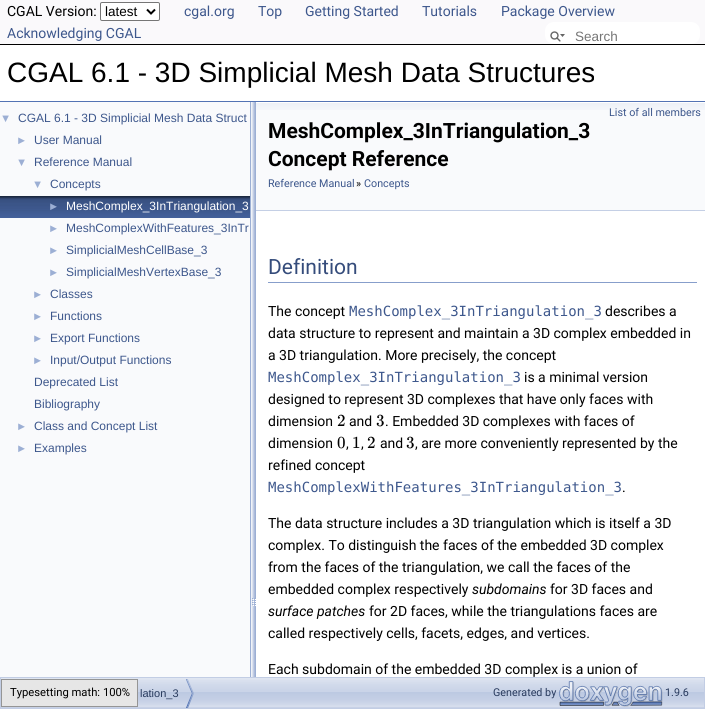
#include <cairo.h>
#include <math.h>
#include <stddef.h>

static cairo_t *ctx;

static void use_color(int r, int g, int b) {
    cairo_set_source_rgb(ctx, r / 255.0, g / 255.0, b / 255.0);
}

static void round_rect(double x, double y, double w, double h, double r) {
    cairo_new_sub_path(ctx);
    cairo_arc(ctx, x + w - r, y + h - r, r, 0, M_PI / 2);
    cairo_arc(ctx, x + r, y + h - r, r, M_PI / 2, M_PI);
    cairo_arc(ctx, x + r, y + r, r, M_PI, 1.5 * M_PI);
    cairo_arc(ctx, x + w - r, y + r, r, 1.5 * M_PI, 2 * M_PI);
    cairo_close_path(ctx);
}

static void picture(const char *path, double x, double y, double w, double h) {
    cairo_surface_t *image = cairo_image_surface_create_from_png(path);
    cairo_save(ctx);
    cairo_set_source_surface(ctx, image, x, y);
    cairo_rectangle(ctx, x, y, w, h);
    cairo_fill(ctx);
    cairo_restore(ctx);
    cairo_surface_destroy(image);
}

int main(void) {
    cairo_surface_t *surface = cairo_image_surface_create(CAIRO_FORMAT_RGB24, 705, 709);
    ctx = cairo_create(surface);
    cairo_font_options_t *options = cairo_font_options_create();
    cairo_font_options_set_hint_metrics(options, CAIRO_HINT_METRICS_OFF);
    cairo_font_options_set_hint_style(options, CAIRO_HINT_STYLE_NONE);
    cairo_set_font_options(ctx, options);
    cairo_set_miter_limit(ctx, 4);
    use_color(255, 255, 255);
    cairo_paint(ctx);
    use_color(250, 249, 251);
    cairo_rectangle(ctx, 0, 0, 705, 44);
    cairo_fill(ctx);
    use_color(0, 0, 0);
    cairo_rectangle(ctx, 0, 44, 705, 1);
    cairo_fill(ctx);
    cairo_select_font_face(ctx, "Roboto", CAIRO_FONT_SLANT_NORMAL, CAIRO_FONT_WEIGHT_NORMAL);
    cairo_set_font_size(ctx, 14);
    cairo_move_to(ctx, 7, 16);
    cairo_show_text(ctx, "CGAL Version:");
    use_color(255, 255, 255);
    round_rect(100.5, 2.5, 59, 18, 1.5);
    cairo_fill_preserve(ctx);
    use_color(118, 118, 118);
    cairo_set_line_width(ctx, 1);
    cairo_stroke(ctx);
    cairo_new_path(ctx);
    cairo_move_to(ctx, 147, 9.5);
    cairo_line_to(ctx, 151, 13.5);
    cairo_line_to(ctx, 155, 9.5);
    use_color(0, 0, 0);
    cairo_set_line_width(ctx, 2);
    cairo_stroke(ctx);
    cairo_select_font_face(ctx, "Liberation Sans", CAIRO_FONT_SLANT_NORMAL, CAIRO_FONT_WEIGHT_NORMAL);
    cairo_set_font_size(ctx, 13.5);
    cairo_move_to(ctx, 105, 16);
    cairo_show_text(ctx, "latest");
    cairo_select_font_face(ctx, "Roboto", CAIRO_FONT_SLANT_NORMAL, CAIRO_FONT_WEIGHT_NORMAL);
    cairo_set_font_size(ctx, 14);
    use_color(61, 87, 140);
    cairo_move_to(ctx, 184, 16);
    cairo_show_text(ctx, "cgal.org");
    cairo_move_to(ctx, 258, 16);
    cairo_show_text(ctx, "Top");
    cairo_move_to(ctx, 305, 16);
    cairo_show_text(ctx, "Getting Started");
    cairo_move_to(ctx, 422, 16);
    cairo_show_text(ctx, "Tutorials");
    cairo_move_to(ctx, 501, 16);
    cairo_show_text(ctx, "Package Overview");
    cairo_move_to(ctx, 7, 38);
    cairo_show_text(ctx, "Acknowledging CGAL");
    use_color(255, 255, 255);
    round_rect(545, 22, 155, 22, 9);
    cairo_fill(ctx);
    picture("img1.png", 550, 31, 15, 11);
    cairo_select_font_face(ctx, "Liberation Sans", CAIRO_FONT_SLANT_NORMAL, CAIRO_FONT_WEIGHT_NORMAL);
    cairo_set_font_size(ctx, 13.5);
    use_color(117, 117, 117);
    cairo_move_to(ctx, 575, 41);
    cairo_show_text(ctx, "Search");
    use_color(83, 115, 180);
    cairo_rectangle(ctx, 0, 101, 705, 1);
    cairo_fill(ctx);
    cairo_set_font_size(ctx, 28);
    use_color(0, 0, 0);
    cairo_move_to(ctx, 7, 82);
    cairo_show_text(ctx, "CGAL 6.1 - 3D Simplicial Mesh Data Structures");
    use_color(249, 250, 252);
    cairo_rectangle(ctx, 0, 102, 250, 575);
    cairo_fill(ctx);
    cairo_set_font_size(ctx, 11.25);
    use_color(156, 175, 212);
    cairo_move_to(ctx, 0, 122);
    cairo_show_text(ctx, "▼");
    cairo_set_font_size(ctx, 12);
    use_color(61, 87, 140);
    cairo_move_to(ctx, 18, 122);
    cairo_show_text(ctx, "CGAL 6.1 - 3D Simplicial Mesh Data Struct");
    cairo_set_font_size(ctx, 11.25);
    use_color(156, 175, 212);
    cairo_move_to(ctx, 16, 144);
    cairo_show_text(ctx, "►");
    cairo_set_font_size(ctx, 12);
    use_color(61, 87, 140);
    cairo_move_to(ctx, 34, 144);
    cairo_show_text(ctx, "User Manual");
    cairo_set_font_size(ctx, 11.25);
    use_color(156, 175, 212);
    cairo_move_to(ctx, 16, 166);
    cairo_show_text(ctx, "▼");
    cairo_set_font_size(ctx, 12);
    use_color(61, 87, 140);
    cairo_move_to(ctx, 34, 166);
    cairo_show_text(ctx, "Reference Manual");
    cairo_set_font_size(ctx, 11.25);
    use_color(156, 175, 212);
    cairo_move_to(ctx, 32, 188);
    cairo_show_text(ctx, "▼");
    cairo_set_font_size(ctx, 12);
    use_color(61, 87, 140);
    cairo_move_to(ctx, 50, 188);
    cairo_show_text(ctx, "Concepts");
    picture("img2.png", 0, 196, 250, 22);
    cairo_set_font_size(ctx, 11.25);
    use_color(156, 175, 212);
    cairo_move_to(ctx, 48, 210);
    cairo_show_text(ctx, "►");
    cairo_set_font_size(ctx, 12);
    use_color(255, 255, 255);
    cairo_move_to(ctx, 66, 210);
    cairo_show_text(ctx, "MeshComplex_3InTriangulation_3");
    cairo_set_font_size(ctx, 11.25);
    use_color(156, 175, 212);
    cairo_move_to(ctx, 48, 232);
    cairo_show_text(ctx, "►");
    cairo_set_font_size(ctx, 12);
    use_color(61, 87, 140);
    cairo_move_to(ctx, 66, 232);
    cairo_show_text(ctx, "MeshComplexWithFeatures_3InTr");
    cairo_set_font_size(ctx, 11.25);
    use_color(156, 175, 212);
    cairo_move_to(ctx, 48, 254);
    cairo_show_text(ctx, "►");
    cairo_set_font_size(ctx, 12);
    use_color(61, 87, 140);
    cairo_move_to(ctx, 66, 254);
    cairo_show_text(ctx, "SimplicialMeshCellBase_3");
    cairo_set_font_size(ctx, 11.25);
    use_color(156, 175, 212);
    cairo_move_to(ctx, 48, 276);
    cairo_show_text(ctx, "►");
    cairo_set_font_size(ctx, 12);
    use_color(61, 87, 140);
    cairo_move_to(ctx, 66, 276);
    cairo_show_text(ctx, "SimplicialMeshVertexBase_3");
    cairo_set_font_size(ctx, 11.25);
    use_color(156, 175, 212);
    cairo_move_to(ctx, 32, 298);
    cairo_show_text(ctx, "►");
    cairo_set_font_size(ctx, 12);
    use_color(61, 87, 140);
    cairo_move_to(ctx, 50, 298);
    cairo_show_text(ctx, "Classes");
    cairo_set_font_size(ctx, 11.25);
    use_color(156, 175, 212);
    cairo_move_to(ctx, 32, 320);
    cairo_show_text(ctx, "►");
    cairo_set_font_size(ctx, 12);
    use_color(61, 87, 140);
    cairo_move_to(ctx, 50, 320);
    cairo_show_text(ctx, "Functions");
    cairo_set_font_size(ctx, 11.25);
    use_color(156, 175, 212);
    cairo_move_to(ctx, 32, 342);
    cairo_show_text(ctx, "►");
    cairo_set_font_size(ctx, 12);
    use_color(61, 87, 140);
    cairo_move_to(ctx, 50, 342);
    cairo_show_text(ctx, "Export Functions");
    cairo_set_font_size(ctx, 11.25);
    use_color(156, 175, 212);
    cairo_move_to(ctx, 32, 364);
    cairo_show_text(ctx, "►");
    cairo_set_font_size(ctx, 12);
    use_color(61, 87, 140);
    cairo_move_to(ctx, 50, 364);
    cairo_show_text(ctx, "Input/Output Functions");
    cairo_move_to(ctx, 34, 386);
    cairo_show_text(ctx, "Deprecated List");
    cairo_move_to(ctx, 34, 408);
    cairo_show_text(ctx, "Bibliography");
    cairo_set_font_size(ctx, 11.25);
    use_color(156, 175, 212);
    cairo_move_to(ctx, 16, 430);
    cairo_show_text(ctx, "►");
    cairo_set_font_size(ctx, 12);
    use_color(61, 87, 140);
    cairo_move_to(ctx, 34, 430);
    cairo_show_text(ctx, "Class and Concept List");
    cairo_set_font_size(ctx, 11.25);
    use_color(156, 175, 212);
    cairo_move_to(ctx, 16, 452);
    cairo_show_text(ctx, "►");
    cairo_set_font_size(ctx, 12);
    use_color(61, 87, 140);
    cairo_move_to(ctx, 34, 452);
    cairo_show_text(ctx, "Examples");
    picture("img3.png", 250, 102, 6, 575);
    use_color(249, 250, 252);
    cairo_rectangle(ctx, 256, 110, 449, 100);
    cairo_fill(ctx);
    picture("img4.png", 256, 102, 449, 8);
    use_color(196, 207, 229);
    cairo_rectangle(ctx, 256, 210, 449, 1);
    cairo_fill(ctx);
    cairo_select_font_face(ctx, "Roboto", CAIRO_FONT_SLANT_NORMAL, CAIRO_FONT_WEIGHT_NORMAL);
    cairo_set_font_size(ctx, 10.75);
    use_color(61, 87, 140);
    cairo_move_to(ctx, 609, 116);
    cairo_show_text(ctx, "List of all members");
    cairo_select_font_face(ctx, "Roboto", CAIRO_FONT_SLANT_NORMAL, CAIRO_FONT_WEIGHT_BOLD);
    cairo_set_font_size(ctx, 21);
    use_color(0, 0, 0);
    cairo_move_to(ctx, 268, 138);
    cairo_show_text(ctx, "MeshComplex_3InTriangulation_3");
    cairo_move_to(ctx, 268, 166);
    cairo_show_text(ctx, "Concept Reference");
    cairo_select_font_face(ctx, "Roboto", CAIRO_FONT_SLANT_NORMAL, CAIRO_FONT_WEIGHT_NORMAL);
    cairo_set_font_size(ctx, 10.75);
    use_color(61, 87, 140);
    cairo_move_to(ctx, 268, 187);
    cairo_show_text(ctx, "Reference Manual");
    use_color(0, 0, 0);
    cairo_move_to(ctx, 356, 187);
    cairo_show_text(ctx, "»");
    use_color(61, 87, 140);
    cairo_move_to(ctx, 364, 187);
    cairo_show_text(ctx, "Concepts");
    use_color(135, 158, 203);
    cairo_rectangle(ctx, 268, 282, 429, 1);
    cairo_fill(ctx);
    cairo_set_font_size(ctx, 21);
    use_color(53, 76, 123);
    cairo_move_to(ctx, 268, 274);
    cairo_show_text(ctx, "Definition");
    cairo_set_font_size(ctx, 14);
    use_color(0, 0, 0);
    cairo_move_to(ctx, 268, 316);
    cairo_show_text(ctx, "The concept");
    cairo_select_font_face(ctx, "DejaVu Sans Mono", CAIRO_FONT_SLANT_NORMAL, CAIRO_FONT_WEIGHT_NORMAL);
    use_color(61, 87, 140);
    cairo_move_to(ctx, 349, 316);
    cairo_show_text(ctx, "MeshComplex_3InTriangulation_3");
    cairo_select_font_face(ctx, "Roboto", CAIRO_FONT_SLANT_NORMAL, CAIRO_FONT_WEIGHT_NORMAL);
    use_color(0, 0, 0);
    cairo_move_to(ctx, 605, 316);
    cairo_show_text(ctx, "describes a");
    cairo_move_to(ctx, 268, 338);
    cairo_show_text(ctx, "data structure to represent and maintain a 3D complex embedded in");
    cairo_move_to(ctx, 268, 360);
    cairo_show_text(ctx, "a 3D triangulation. More precisely, the concept");
    cairo_select_font_face(ctx, "DejaVu Sans Mono", CAIRO_FONT_SLANT_NORMAL, CAIRO_FONT_WEIGHT_NORMAL);
    use_color(61, 87, 140);
    cairo_move_to(ctx, 268, 382);
    cairo_show_text(ctx, "MeshComplex_3InTriangulation_3");
    cairo_select_font_face(ctx, "Roboto", CAIRO_FONT_SLANT_NORMAL, CAIRO_FONT_WEIGHT_NORMAL);
    use_color(0, 0, 0);
    cairo_move_to(ctx, 524, 382);
    cairo_show_text(ctx, "is a minimal version");
    cairo_move_to(ctx, 268, 404);
    cairo_show_text(ctx, "designed to represent 3D complexes that have only faces with");
    cairo_move_to(ctx, 268, 426);
    cairo_show_text(ctx, "dimension");
    cairo_select_font_face(ctx, "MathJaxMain", CAIRO_FONT_SLANT_NORMAL, CAIRO_FONT_WEIGHT_NORMAL);
    cairo_set_font_size(ctx, 17);
    cairo_move_to(ctx, 337, 426);
    cairo_show_text(ctx, "2");
    cairo_select_font_face(ctx, "Roboto", CAIRO_FONT_SLANT_NORMAL, CAIRO_FONT_WEIGHT_NORMAL);
    cairo_set_font_size(ctx, 14);
    cairo_move_to(ctx, 349, 426);
    cairo_show_text(ctx, "and");
    cairo_select_font_face(ctx, "MathJaxMain", CAIRO_FONT_SLANT_NORMAL, CAIRO_FONT_WEIGHT_NORMAL);
    cairo_set_font_size(ctx, 17);
    cairo_move_to(ctx, 376, 426);
    cairo_show_text(ctx, "3");
    cairo_select_font_face(ctx, "Roboto", CAIRO_FONT_SLANT_NORMAL, CAIRO_FONT_WEIGHT_NORMAL);
    cairo_set_font_size(ctx, 14);
    cairo_move_to(ctx, 385, 426);
    cairo_show_text(ctx, ". Embedded 3D complexes with faces of");
    cairo_move_to(ctx, 268, 448);
    cairo_show_text(ctx, "dimension");
    cairo_select_font_face(ctx, "MathJaxMain", CAIRO_FONT_SLANT_NORMAL, CAIRO_FONT_WEIGHT_NORMAL);
    cairo_set_font_size(ctx, 17);
    cairo_move_to(ctx, 337, 448);
    cairo_show_text(ctx, "0");
    cairo_select_font_face(ctx, "Roboto", CAIRO_FONT_SLANT_NORMAL, CAIRO_FONT_WEIGHT_NORMAL);
    cairo_set_font_size(ctx, 14);
    cairo_move_to(ctx, 346, 448);
    cairo_show_text(ctx, ",");
    cairo_select_font_face(ctx, "MathJaxMain", CAIRO_FONT_SLANT_NORMAL, CAIRO_FONT_WEIGHT_NORMAL);
    cairo_set_font_size(ctx, 17);
    cairo_move_to(ctx, 352, 448);
    cairo_show_text(ctx, "1");
    cairo_select_font_face(ctx, "Roboto", CAIRO_FONT_SLANT_NORMAL, CAIRO_FONT_WEIGHT_NORMAL);
    cairo_set_font_size(ctx, 14);
    cairo_move_to(ctx, 361, 448);
    cairo_show_text(ctx, ",");
    cairo_select_font_face(ctx, "MathJaxMain", CAIRO_FONT_SLANT_NORMAL, CAIRO_FONT_WEIGHT_NORMAL);
    cairo_set_font_size(ctx, 17);
    cairo_move_to(ctx, 367, 448);
    cairo_show_text(ctx, "2");
    cairo_select_font_face(ctx, "Roboto", CAIRO_FONT_SLANT_NORMAL, CAIRO_FONT_WEIGHT_NORMAL);
    cairo_set_font_size(ctx, 14);
    cairo_move_to(ctx, 380, 448);
    cairo_show_text(ctx, "and");
    cairo_select_font_face(ctx, "MathJaxMain", CAIRO_FONT_SLANT_NORMAL, CAIRO_FONT_WEIGHT_NORMAL);
    cairo_set_font_size(ctx, 17);
    cairo_move_to(ctx, 406, 448);
    cairo_show_text(ctx, "3");
    cairo_select_font_face(ctx, "Roboto", CAIRO_FONT_SLANT_NORMAL, CAIRO_FONT_WEIGHT_NORMAL);
    cairo_set_font_size(ctx, 14);
    cairo_move_to(ctx, 415, 448);
    cairo_show_text(ctx, ", are more conveniently represented by the");
    cairo_move_to(ctx, 268, 470);
    cairo_show_text(ctx, "refined concept");
    cairo_select_font_face(ctx, "DejaVu Sans Mono", CAIRO_FONT_SLANT_NORMAL, CAIRO_FONT_WEIGHT_NORMAL);
    use_color(61, 87, 140);
    cairo_move_to(ctx, 268, 492);
    cairo_show_text(ctx, "MeshComplexWithFeatures_3InTriangulation_3");
    cairo_select_font_face(ctx, "Roboto", CAIRO_FONT_SLANT_NORMAL, CAIRO_FONT_WEIGHT_NORMAL);
    use_color(0, 0, 0);
    cairo_move_to(ctx, 622, 492);
    cairo_show_text(ctx, ".");
    cairo_move_to(ctx, 268, 528);
    cairo_show_text(ctx, "The data structure includes a 3D triangulation which is itself a 3D");
    cairo_move_to(ctx, 268, 550);
    cairo_show_text(ctx, "complex. To distinguish the faces of the embedded 3D complex");
    cairo_move_to(ctx, 268, 572);
    cairo_show_text(ctx, "from the faces of the triangulation, we call the faces of the");
    cairo_move_to(ctx, 268, 594);
    cairo_show_text(ctx, "embedded complex respectively");
    cairo_select_font_face(ctx, "Roboto", CAIRO_FONT_SLANT_ITALIC, CAIRO_FONT_WEIGHT_NORMAL);
    cairo_move_to(ctx, 472, 594);
    cairo_show_text(ctx, "subdomains");
    cairo_select_font_face(ctx, "Roboto", CAIRO_FONT_SLANT_NORMAL, CAIRO_FONT_WEIGHT_NORMAL);
    cairo_move_to(ctx, 550, 594);
    cairo_show_text(ctx, "for 3D faces and");
    cairo_select_font_face(ctx, "Roboto", CAIRO_FONT_SLANT_ITALIC, CAIRO_FONT_WEIGHT_NORMAL);
    cairo_move_to(ctx, 268, 616);
    cairo_show_text(ctx, "surface patches");
    cairo_select_font_face(ctx, "Roboto", CAIRO_FONT_SLANT_NORMAL, CAIRO_FONT_WEIGHT_NORMAL);
    cairo_move_to(ctx, 369, 616);
    cairo_show_text(ctx, "for 2D faces, while the triangulations faces are");
    cairo_move_to(ctx, 268, 638);
    cairo_show_text(ctx, "called respectively cells, facets, edges, and vertices.");
    cairo_move_to(ctx, 268, 674);
    cairo_show_text(ctx, "Each subdomain of the embedded 3D complex is a union of");
    picture("img5.png", 1, 678, 703, 30);
    cairo_rectangle(ctx, 0.5, 677.5, 704, 31);
    use_color(194, 205, 228);
    cairo_set_line_width(ctx, 1);
    cairo_stroke(ctx);
    use_color(230, 230, 230);
    cairo_rectangle(ctx, 1.5, 679.5, 136, 27);
    cairo_fill_preserve(ctx);
    use_color(149, 149, 149);
    cairo_stroke(ctx);
    cairo_set_font_size(ctx, 11.25);
    use_color(0, 0, 0);
    cairo_move_to(ctx, 10, 696);
    cairo_show_text(ctx, "Typesetting math: 100%");
    picture("img6.png", 186, 679, 8, 29);
    cairo_select_font_face(ctx, "Liberation Sans", CAIRO_FONT_SLANT_NORMAL, CAIRO_FONT_WEIGHT_NORMAL);
    cairo_set_font_size(ctx, 11);
    use_color(40, 58, 93);
    cairo_move_to(ctx, 140, 697);
    cairo_show_text(ctx, "lation_3");
    cairo_select_font_face(ctx, "Roboto", CAIRO_FONT_SLANT_NORMAL, CAIRO_FONT_WEIGHT_NORMAL);
    cairo_set_font_size(ctx, 10.75);
    cairo_move_to(ctx, 493, 696);
    cairo_show_text(ctx, "Generated by");
    picture("img7.png", 559, 681, 104, 26);
    cairo_move_to(ctx, 665, 696);
    cairo_show_text(ctx, "1.9.6");
    cairo_surface_write_to_png(surface, "result.png");
    cairo_font_options_destroy(options);
    cairo_destroy(ctx);
    cairo_surface_destroy(surface);
    return 0;
}
